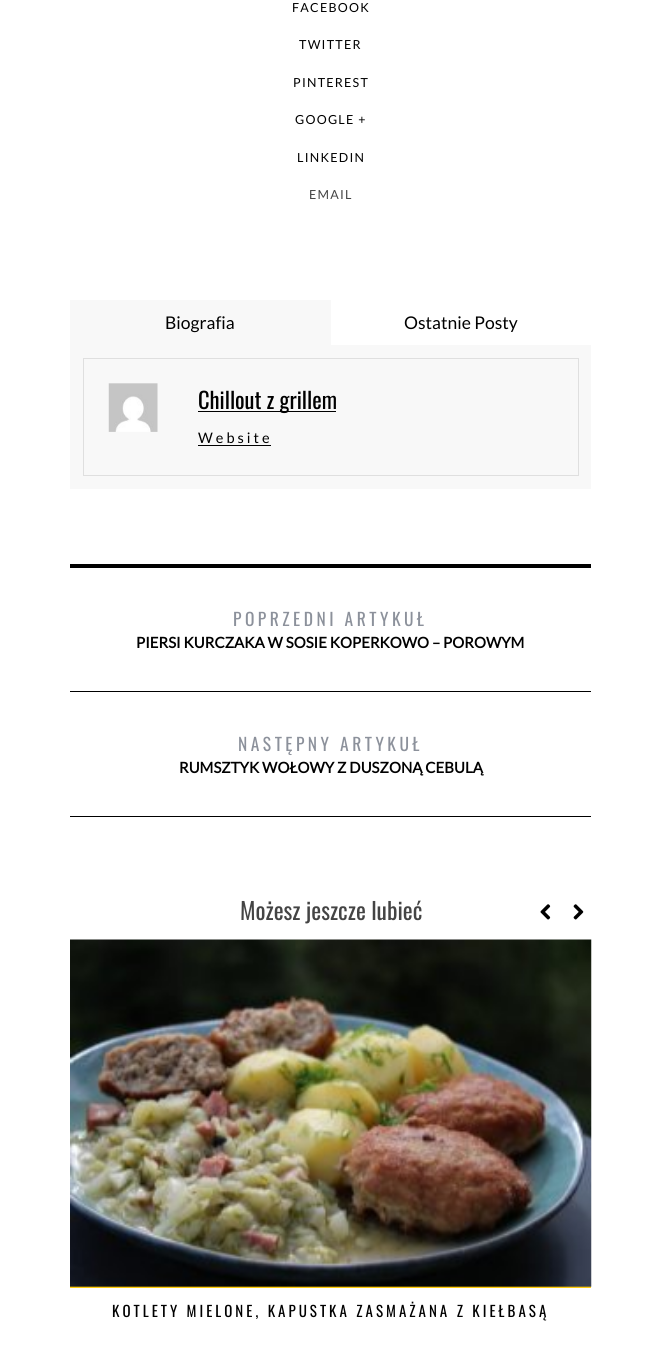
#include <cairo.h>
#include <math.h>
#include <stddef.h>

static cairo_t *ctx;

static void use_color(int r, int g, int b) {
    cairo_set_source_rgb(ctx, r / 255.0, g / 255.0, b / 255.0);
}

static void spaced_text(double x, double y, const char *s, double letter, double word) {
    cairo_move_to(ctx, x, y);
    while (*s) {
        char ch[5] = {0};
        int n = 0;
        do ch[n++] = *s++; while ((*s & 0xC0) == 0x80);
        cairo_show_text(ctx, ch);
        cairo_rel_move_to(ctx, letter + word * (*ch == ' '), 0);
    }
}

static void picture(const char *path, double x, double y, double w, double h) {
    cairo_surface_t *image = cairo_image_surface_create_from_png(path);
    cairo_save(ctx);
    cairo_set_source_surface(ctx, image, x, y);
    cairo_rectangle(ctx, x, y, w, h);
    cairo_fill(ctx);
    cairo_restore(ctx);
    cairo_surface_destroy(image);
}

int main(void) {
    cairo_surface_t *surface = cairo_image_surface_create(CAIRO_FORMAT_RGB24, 661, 1352);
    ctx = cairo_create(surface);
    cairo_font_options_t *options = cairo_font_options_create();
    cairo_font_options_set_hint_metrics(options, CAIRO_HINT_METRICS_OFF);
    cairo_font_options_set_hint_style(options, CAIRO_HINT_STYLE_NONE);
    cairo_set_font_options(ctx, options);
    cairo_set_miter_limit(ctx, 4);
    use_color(255, 255, 255);
    cairo_paint(ctx);
    cairo_select_font_face(ctx, "Lato", CAIRO_FONT_SLANT_NORMAL, CAIRO_FONT_WEIGHT_NORMAL);
    cairo_set_font_size(ctx, 12.5);
    use_color(0, 0, 0);
    spaced_text(292, 12, "FACEBOOK", 1.25, 0);
    spaced_text(299, 49, "TWITTER", 1.25, 0);
    spaced_text(293, 87, "PINTEREST", 1.25, 0);
    spaced_text(295, 124, "GOOGLE +", 1.25, 0);
    spaced_text(297, 162, "LINKEDIN", 1.25, 0);
    use_color(68, 68, 68);
    spaced_text(309, 199, "EMAIL", 1.25, 0);
    use_color(248, 248, 248);
    cairo_rectangle(ctx, 70, 300, 261, 45);
    cairo_fill(ctx);
    cairo_set_font_size(ctx, 17.5);
    use_color(0, 0, 0);
    cairo_move_to(ctx, 165, 329);
    cairo_show_text(ctx, "Biografia");
    cairo_move_to(ctx, 404, 329);
    cairo_show_text(ctx, "Ostatnie Posty");
    use_color(248, 248, 248);
    cairo_rectangle(ctx, 70, 345, 521, 144);
    cairo_fill(ctx);
    cairo_rectangle(ctx, 83.5, 358.5, 495, 117);
    use_color(223, 223, 223);
    cairo_set_line_width(ctx, 1);
    cairo_stroke(ctx);
    picture("img1.png", 108, 383, 50, 49);
    use_color(0, 0, 0);
    cairo_rectangle(ctx, 198, 411, 138, 1);
    cairo_fill(ctx);
    cairo_select_font_face(ctx, "Oswald", CAIRO_FONT_SLANT_NORMAL, CAIRO_FONT_WEIGHT_NORMAL);
    cairo_set_font_size(ctx, 22.5);
    cairo_move_to(ctx, 198, 409);
    cairo_show_text(ctx, "Chillout z grillem");
    cairo_select_font_face(ctx, "Lato", CAIRO_FONT_SLANT_NORMAL, CAIRO_FONT_WEIGHT_NORMAL);
    cairo_set_font_size(ctx, 14.5);
    spaced_text(198, 443, "Website", 3, 0);
    cairo_rectangle(ctx, 198, 445, 73, 1);
    cairo_fill(ctx);
    cairo_rectangle(ctx, 70, 564, 521, 4);
    cairo_fill(ctx);
    cairo_rectangle(ctx, 70, 816, 521, 1);
    cairo_fill(ctx);
    cairo_select_font_face(ctx, "Oswald", CAIRO_FONT_SLANT_NORMAL, CAIRO_FONT_WEIGHT_NORMAL);
    cairo_set_font_size(ctx, 17.5);
    use_color(140, 145, 155);
    spaced_text(233, 626, "POPRZEDNI ARTYKUŁ", 3.5, 0);
    cairo_select_font_face(ctx, "Lato", CAIRO_FONT_SLANT_NORMAL, CAIRO_FONT_WEIGHT_BOLD);
    cairo_set_font_size(ctx, 15);
    use_color(0, 0, 0);
    cairo_move_to(ctx, 136, 648);
    cairo_show_text(ctx, "PIERSI KURCZAKA W SOSIE KOPERKOWO – POROWYM");
    cairo_rectangle(ctx, 70, 691, 521, 1);
    cairo_fill(ctx);
    cairo_select_font_face(ctx, "Oswald", CAIRO_FONT_SLANT_NORMAL, CAIRO_FONT_WEIGHT_NORMAL);
    cairo_set_font_size(ctx, 17.5);
    use_color(140, 145, 155);
    spaced_text(238, 751, "NASTĘPNY ARTYKUŁ", 3.5, 0);
    cairo_select_font_face(ctx, "Lato", CAIRO_FONT_SLANT_NORMAL, CAIRO_FONT_WEIGHT_BOLD);
    cairo_set_font_size(ctx, 15);
    use_color(0, 0, 0);
    cairo_move_to(ctx, 179, 773);
    cairo_show_text(ctx, "RUMSZTYK WOŁOWY Z DUSZONĄ CEBULĄ");
    cairo_select_font_face(ctx, "Oswald", CAIRO_FONT_SLANT_NORMAL, CAIRO_FONT_WEIGHT_NORMAL);
    cairo_set_font_size(ctx, 23.5);
    use_color(68, 68, 68);
    cairo_move_to(ctx, 240, 920);
    cairo_show_text(ctx, "Możesz jeszcze lubieć");
    picture("img2.png", 540, 904, 11, 16);
    picture("img3.png", 573, 904, 11, 16);
    use_color(255, 204, 13);
    cairo_rectangle(ctx, 70, 1286, 521, 2);
    cairo_fill(ctx);
    picture("img4.png", 70, 939, 522, 348);
    cairo_set_font_size(ctx, 15);
    use_color(0, 0, 0);
    spaced_text(112, 1317, "KOTLETY MIELONE, KAPUSTKA ZASMAŻANA Z KIEŁBASĄ", 3, 0);
    cairo_surface_write_to_png(surface, "result.png");
    cairo_font_options_destroy(options);
    cairo_destroy(ctx);
    cairo_surface_destroy(surface);
    return 0;
}
